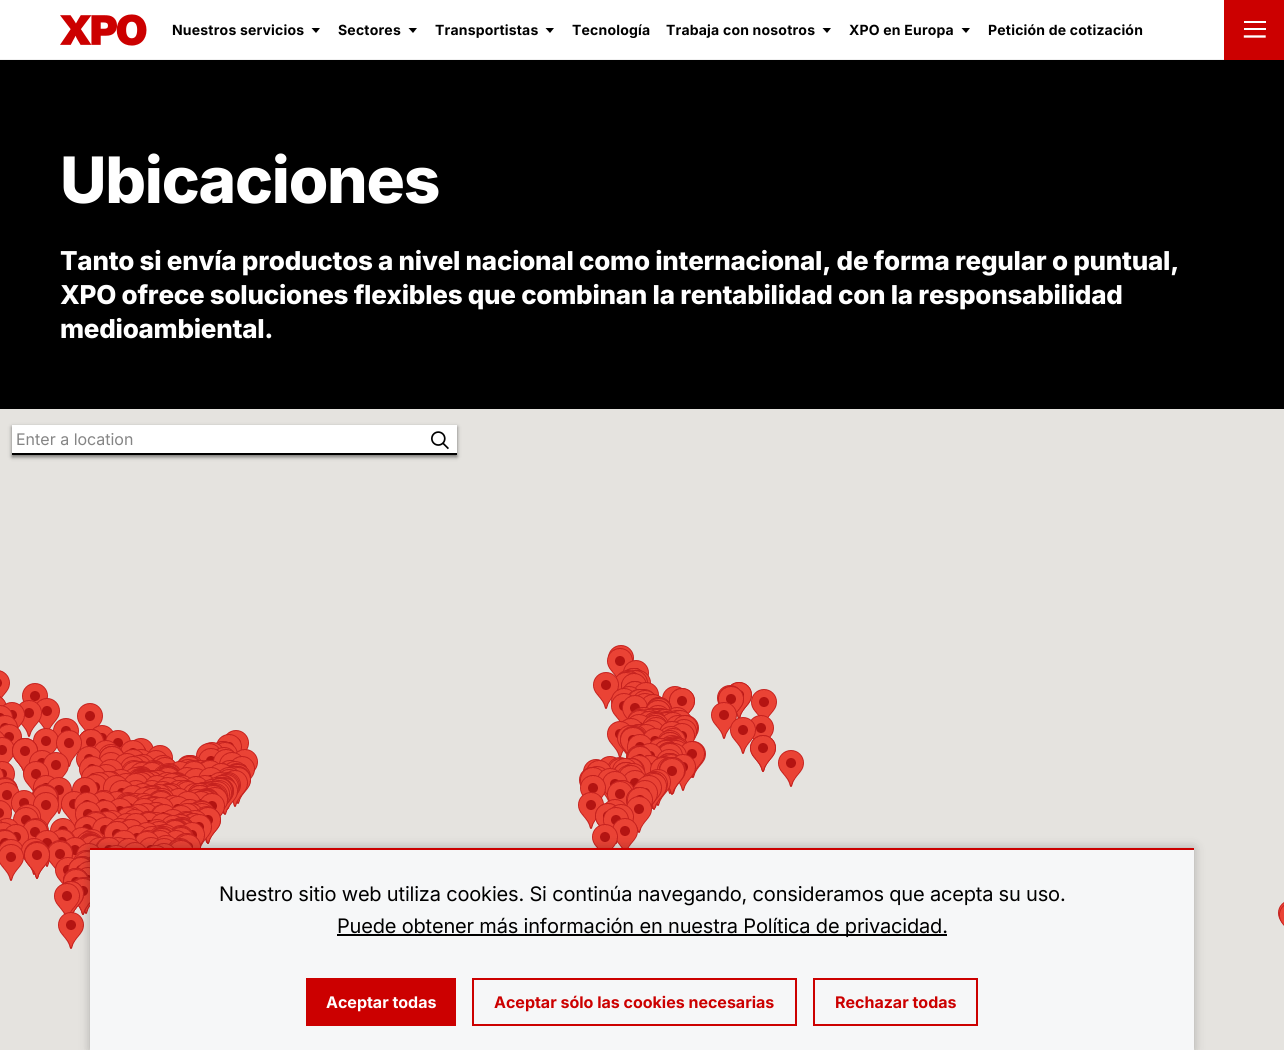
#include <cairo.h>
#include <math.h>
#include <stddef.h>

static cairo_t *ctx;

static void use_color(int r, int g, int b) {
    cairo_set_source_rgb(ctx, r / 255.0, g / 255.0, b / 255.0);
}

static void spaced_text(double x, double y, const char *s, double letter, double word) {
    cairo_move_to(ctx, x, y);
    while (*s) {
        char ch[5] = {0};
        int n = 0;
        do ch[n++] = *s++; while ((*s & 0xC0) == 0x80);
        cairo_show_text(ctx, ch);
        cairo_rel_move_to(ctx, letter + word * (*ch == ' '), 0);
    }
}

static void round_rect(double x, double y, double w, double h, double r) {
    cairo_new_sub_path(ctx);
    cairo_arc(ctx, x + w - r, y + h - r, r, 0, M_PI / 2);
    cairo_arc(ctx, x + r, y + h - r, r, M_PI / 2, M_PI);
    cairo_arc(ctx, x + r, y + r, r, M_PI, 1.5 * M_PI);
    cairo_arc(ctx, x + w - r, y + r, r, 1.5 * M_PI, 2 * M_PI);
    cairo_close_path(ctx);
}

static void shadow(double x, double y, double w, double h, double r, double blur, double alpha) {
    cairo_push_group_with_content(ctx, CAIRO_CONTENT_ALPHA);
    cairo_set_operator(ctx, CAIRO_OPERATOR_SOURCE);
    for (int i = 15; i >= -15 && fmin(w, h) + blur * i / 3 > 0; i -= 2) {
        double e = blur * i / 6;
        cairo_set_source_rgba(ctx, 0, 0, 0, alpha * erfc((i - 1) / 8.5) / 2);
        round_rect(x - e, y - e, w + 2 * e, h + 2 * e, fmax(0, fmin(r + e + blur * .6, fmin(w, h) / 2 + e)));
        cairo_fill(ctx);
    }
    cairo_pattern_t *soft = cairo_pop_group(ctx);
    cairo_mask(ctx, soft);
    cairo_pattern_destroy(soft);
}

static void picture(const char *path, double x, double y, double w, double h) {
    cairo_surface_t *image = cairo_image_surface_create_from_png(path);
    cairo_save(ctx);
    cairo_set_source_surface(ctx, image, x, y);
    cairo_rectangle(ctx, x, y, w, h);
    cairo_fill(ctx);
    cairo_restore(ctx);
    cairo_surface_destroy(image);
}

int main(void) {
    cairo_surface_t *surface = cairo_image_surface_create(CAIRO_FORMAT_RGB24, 1284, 1050);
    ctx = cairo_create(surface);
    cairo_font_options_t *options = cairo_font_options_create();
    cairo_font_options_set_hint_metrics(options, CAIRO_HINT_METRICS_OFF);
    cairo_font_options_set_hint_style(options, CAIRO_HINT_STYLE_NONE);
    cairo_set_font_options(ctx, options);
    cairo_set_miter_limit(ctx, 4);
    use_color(255, 255, 255);
    cairo_paint(ctx);
    use_color(240, 240, 240);
    cairo_rectangle(ctx, 0, 59, 1224, 1);
    cairo_fill(ctx);
    picture("img1.png", 60, 14, 87, 32);
    cairo_select_font_face(ctx, "Inter", CAIRO_FONT_SLANT_NORMAL, CAIRO_FONT_WEIGHT_BOLD);
    cairo_set_font_size(ctx, 14);
    use_color(0, 0, 0);
    spaced_text(172, 35, "Nuestros servicios", 0.2, 0);
    cairo_new_path(ctx);
    cairo_move_to(ctx, 316, 33);
    cairo_line_to(ctx, 311.5, 28);
    cairo_line_to(ctx, 320, 28);
    cairo_close_path(ctx);
    cairo_fill(ctx);
    spaced_text(338, 35, "Sectores", 0.2, 0);
    cairo_new_path(ctx);
    cairo_move_to(ctx, 413, 33);
    cairo_line_to(ctx, 408.5, 28);
    cairo_line_to(ctx, 417, 28);
    cairo_close_path(ctx);
    cairo_fill(ctx);
    spaced_text(435, 35, "Transportistas", 0.2, 0);
    cairo_new_path(ctx);
    cairo_move_to(ctx, 550, 33);
    cairo_line_to(ctx, 545.5, 28);
    cairo_line_to(ctx, 554, 28);
    cairo_close_path(ctx);
    cairo_fill(ctx);
    spaced_text(572, 35, "Tecnología", 0.2, 0);
    spaced_text(666, 35, "Trabaja con nosotros", 0.2, 0);
    cairo_new_path(ctx);
    cairo_move_to(ctx, 827, 33);
    cairo_line_to(ctx, 822.5, 28);
    cairo_line_to(ctx, 831, 28);
    cairo_close_path(ctx);
    cairo_fill(ctx);
    spaced_text(849, 35, "XPO en Europa", 0.2, 0);
    cairo_new_path(ctx);
    cairo_move_to(ctx, 966, 33);
    cairo_line_to(ctx, 961.5, 28);
    cairo_line_to(ctx, 970, 28);
    cairo_close_path(ctx);
    cairo_fill(ctx);
    spaced_text(988, 35, "Petición de cotización", 0.2, 0);
    use_color(204, 0, 0);
    cairo_rectangle(ctx, 1224, 0, 60, 60);
    cairo_fill(ctx);
    use_color(255, 255, 255);
    cairo_rectangle(ctx, 1244, 21, 22, 2);
    cairo_fill(ctx);
    cairo_rectangle(ctx, 1244, 28, 22, 2);
    cairo_fill(ctx);
    cairo_new_path(ctx);
    cairo_move_to(ctx, 1245, 36.5);
    cairo_line_to(ctx, 1264.5, 36.5);
    cairo_set_line_width(ctx, 2.4);
    cairo_set_line_cap(ctx, CAIRO_LINE_CAP_SQUARE);
    cairo_set_line_join(ctx, CAIRO_LINE_JOIN_ROUND);
    cairo_stroke(ctx);
    use_color(0, 0, 0);
    cairo_rectangle(ctx, 0, 60, 1284, 349);
    cairo_fill(ctx);
    cairo_select_font_face(ctx, "Inter ExtraBold", CAIRO_FONT_SLANT_NORMAL, CAIRO_FONT_WEIGHT_NORMAL);
    cairo_set_font_size(ctx, 64);
    use_color(255, 255, 255);
    spaced_text(60, 203, "Ubicaciones", -1.25, 0);
    cairo_set_font_size(ctx, 26);
    spaced_text(60, 270, "Tanto si envía productos a nivel nacional como internacional, de forma regular o puntual,", -0.25, 0);
    spaced_text(60, 304, "XPO ofrece soluciones flexibles que combinan la rentabilidad con la responsabilidad", -0.25, 0);
    spaced_text(60, 338, "medioambiental.", -0.25, 0);
    use_color(229, 227, 223);
    cairo_rectangle(ctx, 0, 409, 1284, 641);
    cairo_fill(ctx);
    picture("img2.png", 0, 670, 130, 143);
    picture("img3.png", 130, 730, 128, 83);
    picture("img4.png", 578, 645, 64, 168);
    picture("img5.png", 642, 661, 162, 152);
    picture("img6.png", 0, 813, 130, 136);
    picture("img7.png", 130, 813, 97, 35);
    picture("img8.png", 580, 813, 62, 35);
    picture("img9.png", 642, 813, 10, 14);
    picture("img10.png", 1278, 902, 6, 24);
    use_color(255, 255, 255);
    cairo_rectangle(ctx, 12, 425, 445, 28);
    cairo_fill(ctx);
    cairo_save(ctx);
    cairo_set_fill_rule(ctx, CAIRO_FILL_RULE_EVEN_ODD);
    cairo_new_path(ctx);
    cairo_move_to(ctx, 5, 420);
    cairo_line_to(ctx, 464, 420);
    cairo_line_to(ctx, 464, 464);
    cairo_line_to(ctx, 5, 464);
    cairo_close_path(ctx);
    cairo_move_to(ctx, 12, 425);
    cairo_line_to(ctx, 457, 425);
    cairo_line_to(ctx, 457, 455);
    cairo_line_to(ctx, 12, 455);
    cairo_close_path(ctx);
    cairo_clip(ctx);
    use_color(0, 0, 0);
    shadow(12, 427, 445, 30, 0, 2, 0.5);
    cairo_restore(ctx);
    use_color(0, 0, 0);
    cairo_rectangle(ctx, 12, 453, 445, 2);
    cairo_fill(ctx);
    cairo_select_font_face(ctx, "Inter", CAIRO_FONT_SLANT_NORMAL, CAIRO_FONT_WEIGHT_NORMAL);
    cairo_set_font_size(ctx, 16);
    use_color(133, 133, 133);
    cairo_move_to(ctx, 16, 445);
    cairo_show_text(ctx, "Enter a location");
    picture("img11.png", 431, 431, 18, 19);
    use_color(0, 0, 0);
    shadow(90, 848, 1104, 202, 0, 5.5, 0.25);
    use_color(246, 247, 248);
    cairo_rectangle(ctx, 90, 850, 1104, 200);
    cairo_fill(ctx);
    use_color(204, 0, 0);
    cairo_rectangle(ctx, 90, 848, 1104, 2);
    cairo_fill(ctx);
    cairo_set_font_size(ctx, 20);
    use_color(0, 0, 0);
    spaced_text(219, 901, "Nuestro sitio web utiliza cookies. Si continúa navegando, consideramos que acepta su uso.", -0.18, 0);
    cairo_rectangle(ctx, 337, 934, 610, 2);
    cairo_fill(ctx);
    spaced_text(337, 933, "Puede obtener más información en nuestra Política de privacidad.", -0.18, 0);
    use_color(204, 0, 0);
    cairo_rectangle(ctx, 306, 978, 150, 48);
    cairo_fill(ctx);
    cairo_select_font_face(ctx, "Inter", CAIRO_FONT_SLANT_NORMAL, CAIRO_FONT_WEIGHT_BOLD);
    cairo_set_font_size(ctx, 16);
    use_color(255, 255, 255);
    cairo_move_to(ctx, 326, 1008);
    cairo_show_text(ctx, "Aceptar todas");
    cairo_rectangle(ctx, 473, 979, 323, 46);
    use_color(204, 0, 0);
    cairo_set_line_width(ctx, 2);
    cairo_set_line_cap(ctx, CAIRO_LINE_CAP_BUTT);
    cairo_set_line_join(ctx, CAIRO_LINE_JOIN_MITER);
    cairo_stroke(ctx);
    cairo_move_to(ctx, 494, 1008);
    cairo_show_text(ctx, "Aceptar sólo las cookies necesarias");
    cairo_rectangle(ctx, 814, 979, 163, 46);
    cairo_stroke(ctx);
    cairo_move_to(ctx, 835, 1008);
    cairo_show_text(ctx, "Rechazar todas");
    cairo_surface_write_to_png(surface, "result.png");
    cairo_font_options_destroy(options);
    cairo_destroy(ctx);
    cairo_surface_destroy(surface);
    return 0;
}
